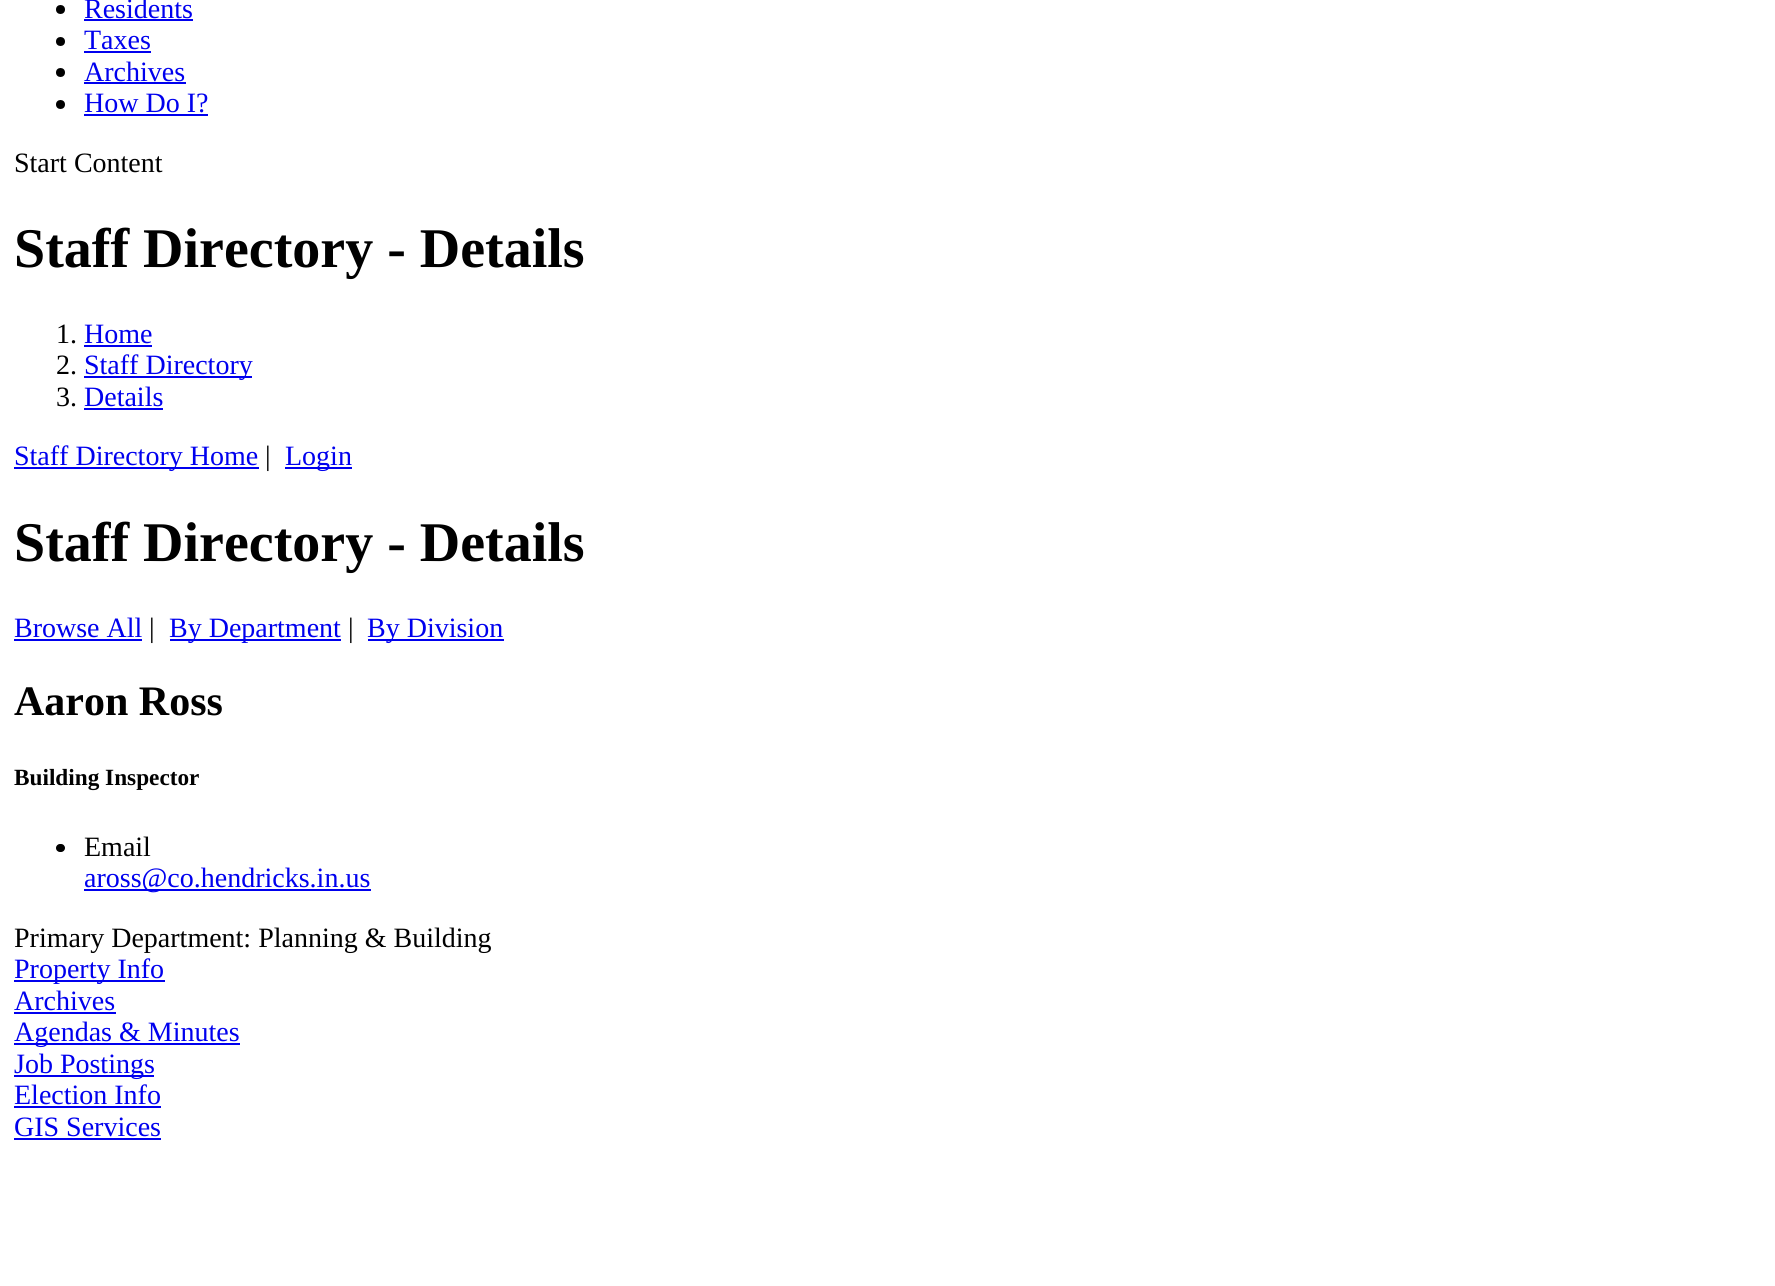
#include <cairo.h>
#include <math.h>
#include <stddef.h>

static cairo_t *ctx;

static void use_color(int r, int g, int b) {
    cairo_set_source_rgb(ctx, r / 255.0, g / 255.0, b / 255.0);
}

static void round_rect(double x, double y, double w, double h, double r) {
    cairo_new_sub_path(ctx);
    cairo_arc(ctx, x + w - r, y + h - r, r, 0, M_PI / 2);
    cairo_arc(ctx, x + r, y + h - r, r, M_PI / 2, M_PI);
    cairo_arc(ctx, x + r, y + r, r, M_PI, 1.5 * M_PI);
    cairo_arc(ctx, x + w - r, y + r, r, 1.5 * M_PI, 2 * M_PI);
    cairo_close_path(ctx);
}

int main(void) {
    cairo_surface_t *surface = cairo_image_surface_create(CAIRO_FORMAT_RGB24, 1775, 1286);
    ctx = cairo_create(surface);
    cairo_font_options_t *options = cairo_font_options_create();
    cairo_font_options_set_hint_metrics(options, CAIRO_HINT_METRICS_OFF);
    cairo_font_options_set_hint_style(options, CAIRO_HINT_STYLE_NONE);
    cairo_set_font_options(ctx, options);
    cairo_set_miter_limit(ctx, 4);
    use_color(255, 255, 255);
    cairo_paint(ctx);
    use_color(0, 0, 0);
    cairo_arc(ctx, 60.5, 9.5, 4.5, 0, 2 * M_PI);
    cairo_fill(ctx);
    cairo_select_font_face(ctx, "Liberation Serif", CAIRO_FONT_SLANT_NORMAL, CAIRO_FONT_WEIGHT_NORMAL);
    cairo_set_font_size(ctx, 28);
    use_color(0, 0, 238);
    cairo_move_to(ctx, 84, 18);
    cairo_show_text(ctx, "Residents");
    cairo_rectangle(ctx, 84, 19, 109, 2);
    cairo_fill(ctx);
    use_color(0, 0, 0);
    cairo_arc(ctx, 60.5, 41.5, 4.5, 0, 2 * M_PI);
    cairo_fill(ctx);
    use_color(0, 0, 238);
    cairo_move_to(ctx, 84, 49);
    cairo_show_text(ctx, "Taxes");
    cairo_rectangle(ctx, 84, 51, 67, 2);
    cairo_fill(ctx);
    use_color(0, 0, 0);
    cairo_arc(ctx, 60.5, 72.5, 4.5, 0, 2 * M_PI);
    cairo_fill(ctx);
    use_color(0, 0, 238);
    cairo_move_to(ctx, 84, 81);
    cairo_show_text(ctx, "Archives");
    cairo_rectangle(ctx, 84, 82, 102, 2);
    cairo_fill(ctx);
    use_color(0, 0, 0);
    cairo_arc(ctx, 60.5, 104.5, 4.5, 0, 2 * M_PI);
    cairo_fill(ctx);
    use_color(0, 0, 238);
    cairo_move_to(ctx, 84, 112);
    cairo_show_text(ctx, "How Do I?");
    cairo_rectangle(ctx, 84, 114, 124, 2);
    cairo_fill(ctx);
    use_color(0, 0, 0);
    cairo_move_to(ctx, 14, 172);
    cairo_show_text(ctx, "Start Content");
    cairo_select_font_face(ctx, "Liberation Serif", CAIRO_FONT_SLANT_NORMAL, CAIRO_FONT_WEIGHT_BOLD);
    cairo_set_font_size(ctx, 56);
    cairo_move_to(ctx, 14, 267);
    cairo_show_text(ctx, "Staff Directory - Details");
    cairo_select_font_face(ctx, "Liberation Serif", CAIRO_FONT_SLANT_NORMAL, CAIRO_FONT_WEIGHT_NORMAL);
    cairo_set_font_size(ctx, 28);
    cairo_move_to(ctx, 56, 343);
    cairo_show_text(ctx, "1.");
    use_color(0, 0, 238);
    cairo_move_to(ctx, 84, 343);
    cairo_show_text(ctx, "Home");
    cairo_rectangle(ctx, 84, 345, 68, 2);
    cairo_fill(ctx);
    use_color(0, 0, 0);
    cairo_move_to(ctx, 56, 374);
    cairo_show_text(ctx, "2.");
    use_color(0, 0, 238);
    cairo_rectangle(ctx, 84, 376, 168, 2);
    cairo_fill(ctx);
    cairo_move_to(ctx, 84, 374);
    cairo_show_text(ctx, "Staff Directory");
    use_color(0, 0, 0);
    cairo_move_to(ctx, 56, 406);
    cairo_show_text(ctx, "3.");
    use_color(0, 0, 238);
    cairo_move_to(ctx, 84, 406);
    cairo_show_text(ctx, "Details");
    cairo_rectangle(ctx, 84, 408, 79, 2);
    cairo_fill(ctx);
    cairo_rectangle(ctx, 14, 467, 245, 2);
    cairo_fill(ctx);
    cairo_move_to(ctx, 14, 465);
    cairo_show_text(ctx, "Staff Directory Home");
    use_color(0, 0, 0);
    cairo_move_to(ctx, 265, 465);
    cairo_show_text(ctx, "|");
    use_color(0, 0, 238);
    cairo_rectangle(ctx, 285, 467, 67, 2);
    cairo_fill(ctx);
    cairo_move_to(ctx, 285, 465);
    cairo_show_text(ctx, "Login");
    cairo_select_font_face(ctx, "Liberation Serif", CAIRO_FONT_SLANT_NORMAL, CAIRO_FONT_WEIGHT_BOLD);
    cairo_set_font_size(ctx, 56);
    use_color(0, 0, 0);
    cairo_move_to(ctx, 14, 561);
    cairo_show_text(ctx, "Staff Directory - Details");
    cairo_select_font_face(ctx, "Liberation Serif", CAIRO_FONT_SLANT_NORMAL, CAIRO_FONT_WEIGHT_NORMAL);
    cairo_set_font_size(ctx, 28);
    use_color(0, 0, 238);
    cairo_move_to(ctx, 14, 637);
    cairo_show_text(ctx, "Browse All");
    cairo_rectangle(ctx, 14, 639, 128, 2);
    cairo_fill(ctx);
    use_color(0, 0, 0);
    cairo_move_to(ctx, 149, 637);
    cairo_show_text(ctx, "|");
    use_color(0, 0, 238);
    cairo_rectangle(ctx, 170, 639, 171, 2);
    cairo_fill(ctx);
    cairo_move_to(ctx, 169, 637);
    cairo_show_text(ctx, "By Department");
    use_color(0, 0, 0);
    cairo_move_to(ctx, 348, 637);
    cairo_show_text(ctx, "|");
    use_color(0, 0, 238);
    cairo_rectangle(ctx, 368, 639, 136, 2);
    cairo_fill(ctx);
    cairo_move_to(ctx, 367, 637);
    cairo_show_text(ctx, "By Division");
    cairo_select_font_face(ctx, "Liberation Serif", CAIRO_FONT_SLANT_NORMAL, CAIRO_FONT_WEIGHT_BOLD);
    cairo_set_font_size(ctx, 42);
    use_color(0, 0, 0);
    cairo_move_to(ctx, 14, 715);
    cairo_show_text(ctx, "Aaron Ross");
    cairo_set_font_size(ctx, 23.25);
    cairo_move_to(ctx, 14, 785);
    cairo_show_text(ctx, "Building Inspector");
    round_rect(56, 844, 9, 8, 4);
    cairo_fill(ctx);
    cairo_select_font_face(ctx, "Liberation Serif", CAIRO_FONT_SLANT_NORMAL, CAIRO_FONT_WEIGHT_NORMAL);
    cairo_set_font_size(ctx, 28);
    cairo_move_to(ctx, 84, 856);
    cairo_show_text(ctx, "Email");
    use_color(0, 0, 238);
    cairo_rectangle(ctx, 84, 889, 287, 2);
    cairo_fill(ctx);
    cairo_move_to(ctx, 84, 887);
    cairo_show_text(ctx, "aross@co.hendricks.in.us");
    use_color(0, 0, 0);
    cairo_move_to(ctx, 14, 947);
    cairo_show_text(ctx, "Primary Department: Planning & Building");
    use_color(0, 0, 238);
    cairo_rectangle(ctx, 14, 980, 151, 2);
    cairo_fill(ctx);
    cairo_move_to(ctx, 14, 978);
    cairo_show_text(ctx, "Property Info");
    cairo_move_to(ctx, 14, 1010);
    cairo_show_text(ctx, "Archives");
    cairo_rectangle(ctx, 14, 1012, 102, 2);
    cairo_fill(ctx);
    cairo_rectangle(ctx, 14, 1043, 226, 2);
    cairo_fill(ctx);
    cairo_move_to(ctx, 14, 1041);
    cairo_show_text(ctx, "Agendas & Minutes");
    cairo_rectangle(ctx, 14, 1075, 140, 2);
    cairo_fill(ctx);
    cairo_move_to(ctx, 14, 1073);
    cairo_show_text(ctx, "Job Postings");
    cairo_move_to(ctx, 14, 1104);
    cairo_show_text(ctx, "Election Info");
    cairo_rectangle(ctx, 14, 1106, 147, 2);
    cairo_fill(ctx);
    cairo_move_to(ctx, 14, 1136);
    cairo_show_text(ctx, "GIS Services");
    cairo_rectangle(ctx, 14, 1138, 147, 2);
    cairo_fill(ctx);
    cairo_surface_write_to_png(surface, "result.png");
    cairo_font_options_destroy(options);
    cairo_destroy(ctx);
    cairo_surface_destroy(surface);
    return 0;
}
